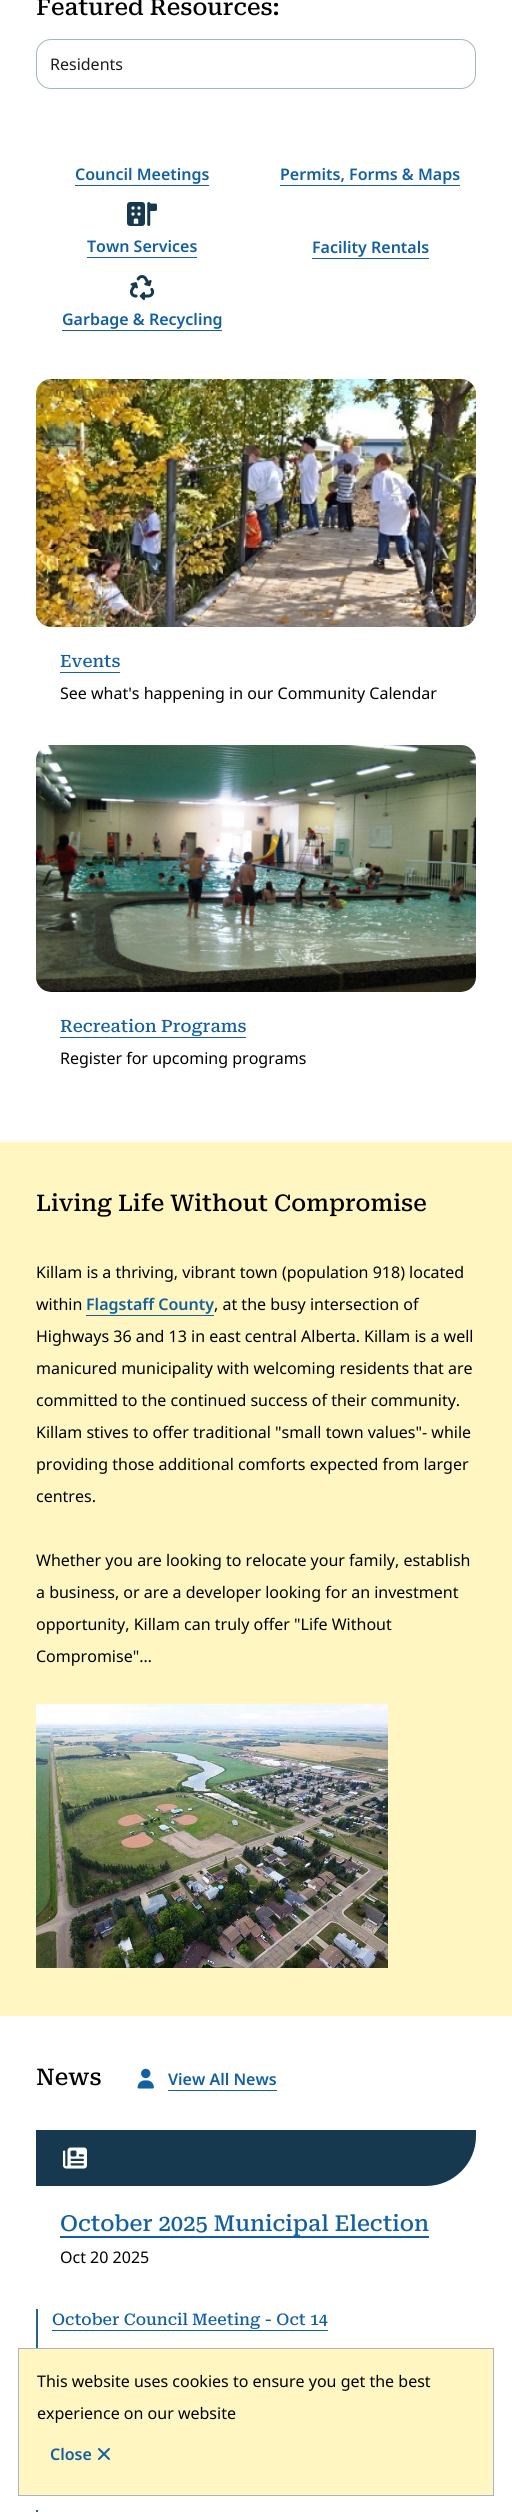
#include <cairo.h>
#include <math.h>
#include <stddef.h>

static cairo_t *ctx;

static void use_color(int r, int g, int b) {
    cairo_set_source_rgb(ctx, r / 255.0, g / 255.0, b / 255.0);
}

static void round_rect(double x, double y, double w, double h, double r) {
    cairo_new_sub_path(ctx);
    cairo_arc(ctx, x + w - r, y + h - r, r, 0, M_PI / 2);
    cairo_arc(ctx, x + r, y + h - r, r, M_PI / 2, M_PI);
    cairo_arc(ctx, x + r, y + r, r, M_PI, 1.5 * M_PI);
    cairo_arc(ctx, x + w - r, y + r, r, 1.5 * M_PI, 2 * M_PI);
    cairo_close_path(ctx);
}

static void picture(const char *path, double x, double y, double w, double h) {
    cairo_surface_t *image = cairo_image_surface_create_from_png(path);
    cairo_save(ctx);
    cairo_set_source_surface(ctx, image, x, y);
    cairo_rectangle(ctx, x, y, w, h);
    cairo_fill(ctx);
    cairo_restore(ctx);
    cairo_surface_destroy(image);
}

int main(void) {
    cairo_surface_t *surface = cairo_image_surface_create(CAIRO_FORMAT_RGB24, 512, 2512);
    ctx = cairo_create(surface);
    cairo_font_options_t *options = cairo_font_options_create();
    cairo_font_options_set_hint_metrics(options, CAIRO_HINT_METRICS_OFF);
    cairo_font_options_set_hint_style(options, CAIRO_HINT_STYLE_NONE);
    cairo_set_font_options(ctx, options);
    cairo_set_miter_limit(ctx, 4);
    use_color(255, 255, 255);
    cairo_paint(ctx);
    cairo_select_font_face(ctx, "Roboto Serif Medium", CAIRO_FONT_SLANT_NORMAL, CAIRO_FONT_WEIGHT_NORMAL);
    cairo_set_font_size(ctx, 23);
    use_color(0, 0, 0);
    cairo_move_to(ctx, 36, 15);
    cairo_show_text(ctx, "Featured Resources:");
    round_rect(36.5, 39.5, 439, 49, 14.5);
    use_color(165, 182, 192);
    cairo_set_line_width(ctx, 1);
    cairo_stroke(ctx);
    cairo_select_font_face(ctx, "Noto Sans", CAIRO_FONT_SLANT_NORMAL, CAIRO_FONT_WEIGHT_NORMAL);
    cairo_set_font_size(ctx, 16);
    use_color(28, 28, 28);
    cairo_move_to(ctx, 50, 70);
    cairo_show_text(ctx, "Residents");
    cairo_select_font_face(ctx, "Noto Sans SemiBold", CAIRO_FONT_SLANT_NORMAL, CAIRO_FONT_WEIGHT_NORMAL);
    use_color(18, 96, 161);
    cairo_move_to(ctx, 75, 180);
    cairo_show_text(ctx, "Council Meetings");
    cairo_rectangle(ctx, 75, 185, 134, 1);
    cairo_fill(ctx);
    cairo_move_to(ctx, 280, 180);
    cairo_show_text(ctx, "Permits, Forms & Maps");
    cairo_rectangle(ctx, 280, 185, 180, 1);
    cairo_fill(ctx);
    picture("img1.png", 127, 202, 30, 24);
    cairo_move_to(ctx, 87, 252);
    cairo_show_text(ctx, "Town Services");
    cairo_rectangle(ctx, 87, 257, 110, 1);
    cairo_fill(ctx);
    cairo_move_to(ctx, 312, 253);
    cairo_show_text(ctx, "Facility Rentals");
    cairo_rectangle(ctx, 312, 258, 117, 1);
    cairo_fill(ctx);
    picture("img2.png", 129, 275, 26, 26);
    cairo_move_to(ctx, 62, 325);
    cairo_show_text(ctx, "Garbage & Recycling");
    cairo_rectangle(ctx, 62, 330, 160, 1);
    cairo_fill(ctx);
    picture("img3.png", 36, 379, 440, 248);
    use_color(143, 126, 42);
    cairo_move_to(ctx, 36, 397);
    cairo_show_text(ctx, "/our-community/events");
    cairo_select_font_face(ctx, "Roboto Serif Medium", CAIRO_FONT_SLANT_NORMAL, CAIRO_FONT_WEIGHT_NORMAL);
    cairo_set_font_size(ctx, 17);
    use_color(18, 96, 161);
    cairo_move_to(ctx, 60, 667);
    cairo_show_text(ctx, "Events");
    cairo_rectangle(ctx, 60, 672, 60, 1);
    cairo_fill(ctx);
    cairo_select_font_face(ctx, "Noto Sans", CAIRO_FONT_SLANT_NORMAL, CAIRO_FONT_WEIGHT_NORMAL);
    cairo_set_font_size(ctx, 16);
    use_color(0, 0, 0);
    cairo_move_to(ctx, 60, 699);
    cairo_show_text(ctx, "See what's happening in our Community Calendar");
    picture("img4.png", 36, 745, 440, 247);
    cairo_select_font_face(ctx, "Noto Sans SemiBold", CAIRO_FONT_SLANT_NORMAL, CAIRO_FONT_WEIGHT_NORMAL);
    use_color(64, 98, 83);
    cairo_move_to(ctx, 42, 763);
    cairo_show_text(ctx, "r");
    cairo_select_font_face(ctx, "Roboto Serif Medium", CAIRO_FONT_SLANT_NORMAL, CAIRO_FONT_WEIGHT_NORMAL);
    cairo_set_font_size(ctx, 17);
    use_color(18, 96, 161);
    cairo_move_to(ctx, 60, 1032);
    cairo_show_text(ctx, "Recreation Programs");
    cairo_rectangle(ctx, 60, 1037, 186, 1);
    cairo_fill(ctx);
    cairo_select_font_face(ctx, "Noto Sans", CAIRO_FONT_SLANT_NORMAL, CAIRO_FONT_WEIGHT_NORMAL);
    cairo_set_font_size(ctx, 16);
    use_color(0, 0, 0);
    cairo_move_to(ctx, 60, 1064);
    cairo_show_text(ctx, "Register for upcoming programs");
    use_color(255, 246, 194);
    cairo_rectangle(ctx, 0, 1142, 512, 874);
    cairo_fill(ctx);
    cairo_select_font_face(ctx, "Roboto Serif Medium", CAIRO_FONT_SLANT_NORMAL, CAIRO_FONT_WEIGHT_NORMAL);
    cairo_set_font_size(ctx, 23);
    use_color(0, 0, 0);
    cairo_move_to(ctx, 36, 1211);
    cairo_show_text(ctx, "Living Life Without Compromise");
    cairo_select_font_face(ctx, "Noto Sans", CAIRO_FONT_SLANT_NORMAL, CAIRO_FONT_WEIGHT_NORMAL);
    cairo_set_font_size(ctx, 16);
    cairo_move_to(ctx, 36, 1278);
    cairo_show_text(ctx, "Killam is a thriving, vibrant town (population 918) located");
    cairo_move_to(ctx, 36, 1310);
    cairo_show_text(ctx, "within");
    cairo_select_font_face(ctx, "Noto Sans SemiBold", CAIRO_FONT_SLANT_NORMAL, CAIRO_FONT_WEIGHT_NORMAL);
    use_color(18, 96, 161);
    cairo_move_to(ctx, 86, 1310);
    cairo_show_text(ctx, "Flagstaff County");
    cairo_rectangle(ctx, 86, 1315, 128, 1);
    cairo_fill(ctx);
    cairo_select_font_face(ctx, "Noto Sans", CAIRO_FONT_SLANT_NORMAL, CAIRO_FONT_WEIGHT_NORMAL);
    use_color(0, 0, 0);
    cairo_move_to(ctx, 214, 1310);
    cairo_show_text(ctx, ", at the busy intersection of");
    cairo_move_to(ctx, 36, 1342);
    cairo_show_text(ctx, "Highways 36 and 13 in east central Alberta. Killam is a well");
    cairo_move_to(ctx, 36, 1374);
    cairo_show_text(ctx, "manicured municipality with welcoming residents that are");
    cairo_move_to(ctx, 36, 1406);
    cairo_show_text(ctx, "committed to the continued success of their community.");
    cairo_move_to(ctx, 36, 1438);
    cairo_show_text(ctx, "Killam stives to offer traditional \"small town values\"- while");
    cairo_move_to(ctx, 36, 1470);
    cairo_show_text(ctx, "providing those additional comforts expected from larger");
    cairo_move_to(ctx, 36, 1502);
    cairo_show_text(ctx, "centres.");
    cairo_move_to(ctx, 36, 1566);
    cairo_show_text(ctx, "Whether you are looking to relocate your family, establish");
    cairo_move_to(ctx, 36, 1598);
    cairo_show_text(ctx, "a business, or are a developer looking for an investment");
    cairo_move_to(ctx, 36, 1630);
    cairo_show_text(ctx, "opportunity, Killam can truly offer \"Life Without");
    cairo_move_to(ctx, 36, 1662);
    cairo_show_text(ctx, "Compromise\"…");
    picture("img5.png", 36, 1704, 352, 264);
    cairo_select_font_face(ctx, "Roboto Serif Medium", CAIRO_FONT_SLANT_NORMAL, CAIRO_FONT_WEIGHT_NORMAL);
    cairo_set_font_size(ctx, 23);
    cairo_move_to(ctx, 36, 2085);
    cairo_show_text(ctx, "News");
    picture("img6.png", 137, 2068, 17, 21);
    cairo_select_font_face(ctx, "Noto Sans SemiBold", CAIRO_FONT_SLANT_NORMAL, CAIRO_FONT_WEIGHT_NORMAL);
    cairo_set_font_size(ctx, 16);
    use_color(18, 96, 161);
    cairo_move_to(ctx, 168, 2085);
    cairo_show_text(ctx, "View All News");
    cairo_rectangle(ctx, 168, 2090, 109, 1);
    cairo_fill(ctx);
    use_color(23, 57, 79);
    cairo_new_path(ctx);
    cairo_move_to(ctx, 36, 2130);
    cairo_line_to(ctx, 476, 2130);
    cairo_line_to(ctx, 476, 2136);
    cairo_curve_to(ctx, 476, 2163.5, 453.5, 2186, 426, 2186);
    cairo_line_to(ctx, 36, 2186);
    cairo_close_path(ctx);
    cairo_fill(ctx);
    picture("img7.png", 63, 2147, 24, 22);
    cairo_select_font_face(ctx, "Roboto Serif Medium", CAIRO_FONT_SLANT_NORMAL, CAIRO_FONT_WEIGHT_NORMAL);
    cairo_set_font_size(ctx, 22);
    use_color(18, 96, 161);
    cairo_move_to(ctx, 60, 2231);
    cairo_show_text(ctx, "October 2025 Municipal Election");
    cairo_rectangle(ctx, 60, 2236, 369, 2);
    cairo_fill(ctx);
    cairo_select_font_face(ctx, "Noto Sans", CAIRO_FONT_SLANT_NORMAL, CAIRO_FONT_WEIGHT_NORMAL);
    cairo_set_font_size(ctx, 16);
    use_color(0, 0, 0);
    cairo_move_to(ctx, 60, 2263);
    cairo_show_text(ctx, "Oct 20 2025");
    use_color(40, 99, 138);
    cairo_rectangle(ctx, 36, 2309, 2, 39);
    cairo_fill(ctx);
    cairo_select_font_face(ctx, "Roboto Serif Medium", CAIRO_FONT_SLANT_NORMAL, CAIRO_FONT_WEIGHT_NORMAL);
    use_color(18, 96, 161);
    cairo_move_to(ctx, 52, 2325);
    cairo_show_text(ctx, "October Council Meeting - Oct 14");
    cairo_rectangle(ctx, 52, 2330, 276, 1);
    cairo_fill(ctx);
    use_color(40, 99, 138);
    cairo_rectangle(ctx, 36, 2510, 2, 2);
    cairo_fill(ctx);
    use_color(255, 246, 194);
    cairo_rectangle(ctx, 18.5, 2348.5, 475, 147);
    cairo_fill_preserve(ctx);
    use_color(165, 182, 192);
    cairo_stroke(ctx);
    cairo_select_font_face(ctx, "Noto Sans", CAIRO_FONT_SLANT_NORMAL, CAIRO_FONT_WEIGHT_NORMAL);
    use_color(0, 0, 0);
    cairo_move_to(ctx, 37, 2387);
    cairo_show_text(ctx, "This website uses cookies to ensure you get the best");
    cairo_move_to(ctx, 37, 2419);
    cairo_show_text(ctx, "experience on our website");
    cairo_select_font_face(ctx, "Noto Sans SemiBold", CAIRO_FONT_SLANT_NORMAL, CAIRO_FONT_WEIGHT_NORMAL);
    use_color(18, 96, 161);
    cairo_move_to(ctx, 50, 2460);
    cairo_show_text(ctx, "Close");
    picture("img8.png", 98, 2448, 12, 12);
    cairo_surface_write_to_png(surface, "result.png");
    cairo_font_options_destroy(options);
    cairo_destroy(ctx);
    cairo_surface_destroy(surface);
    return 0;
}
